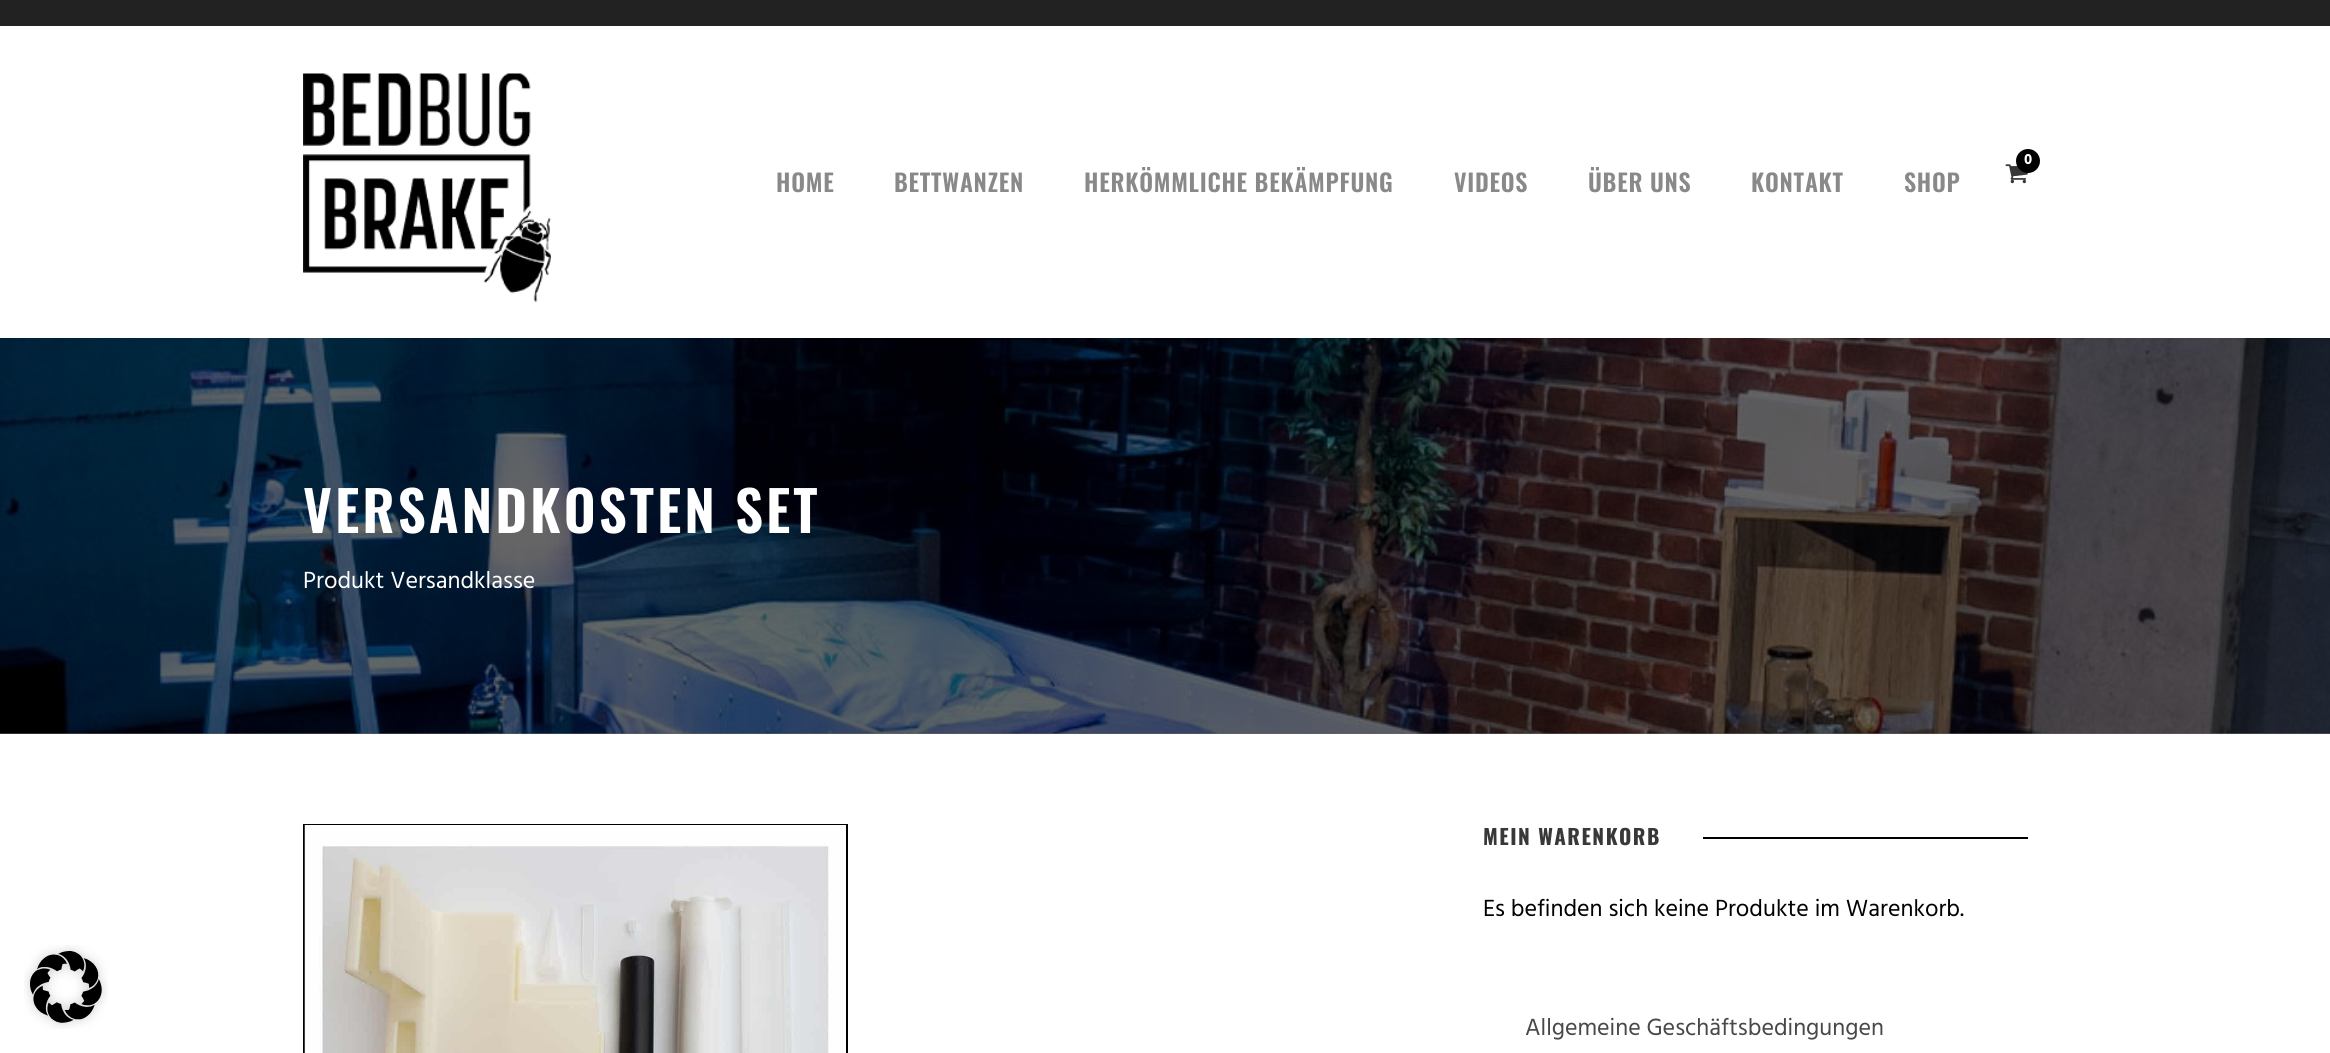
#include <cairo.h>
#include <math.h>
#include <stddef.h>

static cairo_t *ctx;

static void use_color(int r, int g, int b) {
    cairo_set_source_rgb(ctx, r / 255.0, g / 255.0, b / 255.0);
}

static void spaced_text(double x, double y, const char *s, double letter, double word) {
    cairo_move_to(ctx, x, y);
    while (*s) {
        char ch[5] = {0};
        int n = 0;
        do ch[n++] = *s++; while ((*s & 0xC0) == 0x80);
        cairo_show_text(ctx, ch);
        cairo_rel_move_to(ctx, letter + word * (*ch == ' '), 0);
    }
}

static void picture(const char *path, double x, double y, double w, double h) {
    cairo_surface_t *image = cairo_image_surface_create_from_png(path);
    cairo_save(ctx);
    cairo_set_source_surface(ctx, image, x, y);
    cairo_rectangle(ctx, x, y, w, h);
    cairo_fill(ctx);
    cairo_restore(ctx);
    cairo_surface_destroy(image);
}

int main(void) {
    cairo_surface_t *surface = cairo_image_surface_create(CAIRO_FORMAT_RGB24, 2330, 1053);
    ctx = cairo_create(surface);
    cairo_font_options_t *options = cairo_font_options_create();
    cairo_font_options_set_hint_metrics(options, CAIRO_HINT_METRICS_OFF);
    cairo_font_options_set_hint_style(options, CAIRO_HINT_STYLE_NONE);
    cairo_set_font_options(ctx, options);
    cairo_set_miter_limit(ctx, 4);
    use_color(255, 255, 255);
    cairo_paint(ctx);
    use_color(102, 102, 102);
    cairo_rectangle(ctx, 0, 733, 2330, 1);
    cairo_fill(ctx);
    picture("img1.png", 24, 945, 84, 84);
    use_color(34, 34, 34);
    cairo_rectangle(ctx, 0, 0, 2330, 26);
    cairo_fill(ctx);
    picture("img2.png", 303, 73, 248, 229);
    picture("img3.png", 2005, 164, 23, 20);
    use_color(0, 0, 0);
    cairo_arc(ctx, 2028, 161, 12, 0, 2 * M_PI);
    cairo_fill(ctx);
    cairo_select_font_face(ctx, "Hind", CAIRO_FONT_SLANT_NORMAL, CAIRO_FONT_WEIGHT_BOLD);
    cairo_set_font_size(ctx, 15);
    use_color(255, 255, 255);
    cairo_move_to(ctx, 2024, 164);
    cairo_show_text(ctx, "0");
    cairo_select_font_face(ctx, "Oswald SemiBold", CAIRO_FONT_SLANT_NORMAL, CAIRO_FONT_WEIGHT_NORMAL);
    cairo_set_font_size(ctx, 24);
    use_color(137, 137, 137);
    spaced_text(776, 192, "HOME", 0.75, 0);
    spaced_text(894, 192, "BETTWANZEN", 0.75, 0);
    spaced_text(1084, 192, "HERKÖMMLICHE BEKÄMPFUNG", 0.75, 0);
    spaced_text(1454, 192, "VIDEOS", 0.75, 0);
    spaced_text(1588, 192, "ÜBER UNS", 0.75, 0);
    spaced_text(1751, 192, "KONTAKT", 0.75, 0);
    spaced_text(1904, 192, "SHOP", 0.75, 0);
    picture("img4.png", 0, 338, 2330, 396);
    cairo_set_font_size(ctx, 55.5);
    use_color(255, 255, 255);
    spaced_text(303, 533, "VERSANDKOSTEN SET", 3, 0);
    cairo_select_font_face(ctx, "Hind", CAIRO_FONT_SLANT_NORMAL, CAIRO_FONT_WEIGHT_NORMAL);
    cairo_set_font_size(ctx, 24);
    cairo_move_to(ctx, 303, 588);
    cairo_show_text(ctx, "Produkt Versandklasse");
    cairo_rectangle(ctx, 304, 825, 543, 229);
    use_color(0, 0, 0);
    cairo_stroke(ctx);
    picture("img5.png", 304, 825, 542, 228);
    cairo_select_font_face(ctx, "Oswald", CAIRO_FONT_SLANT_NORMAL, CAIRO_FONT_WEIGHT_BOLD);
    cairo_set_font_size(ctx, 21);
    use_color(56, 56, 56);
    spaced_text(1483, 845, "MEIN WARENKORB", 1.5, 0);
    use_color(0, 0, 0);
    cairo_rectangle(ctx, 1703, 837, 325, 2);
    cairo_fill(ctx);
    cairo_select_font_face(ctx, "Hind", CAIRO_FONT_SLANT_NORMAL, CAIRO_FONT_WEIGHT_NORMAL);
    cairo_set_font_size(ctx, 24);
    cairo_move_to(ctx, 1483, 916);
    cairo_show_text(ctx, "Es befinden sich keine Produkte im Warenkorb.");
    use_color(72, 72, 72);
    cairo_move_to(ctx, 1525, 1035);
    cairo_show_text(ctx, "Allgemeine Geschäftsbedingungen");
    cairo_surface_write_to_png(surface, "result.png");
    cairo_font_options_destroy(options);
    cairo_destroy(ctx);
    cairo_surface_destroy(surface);
    return 0;
}
